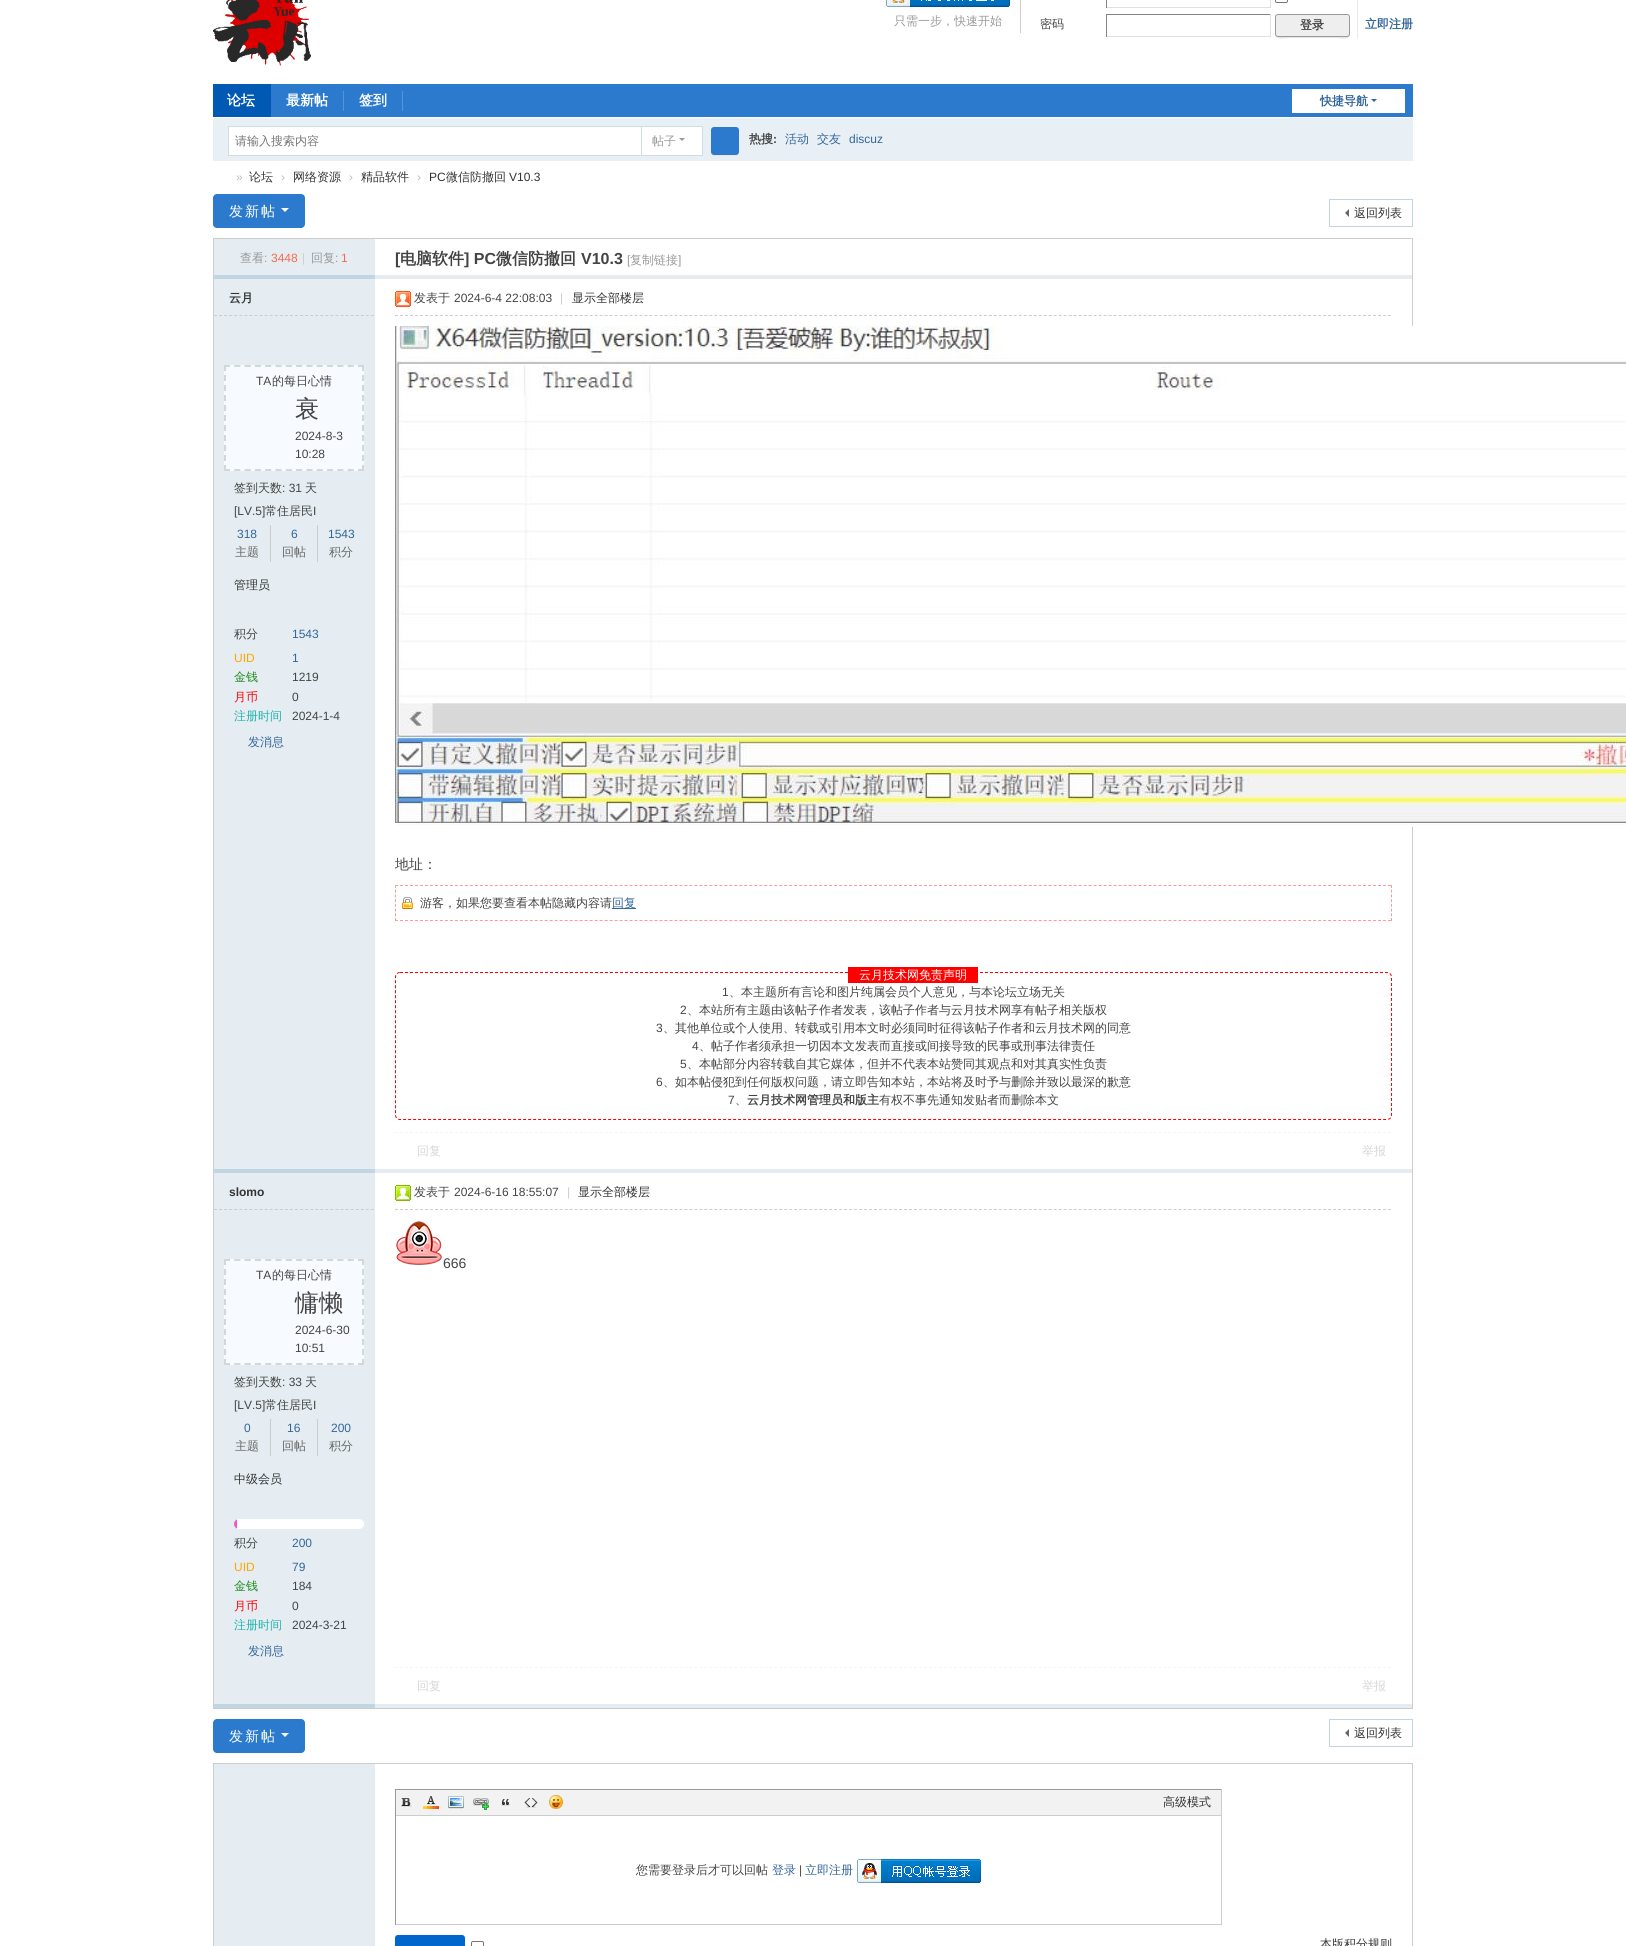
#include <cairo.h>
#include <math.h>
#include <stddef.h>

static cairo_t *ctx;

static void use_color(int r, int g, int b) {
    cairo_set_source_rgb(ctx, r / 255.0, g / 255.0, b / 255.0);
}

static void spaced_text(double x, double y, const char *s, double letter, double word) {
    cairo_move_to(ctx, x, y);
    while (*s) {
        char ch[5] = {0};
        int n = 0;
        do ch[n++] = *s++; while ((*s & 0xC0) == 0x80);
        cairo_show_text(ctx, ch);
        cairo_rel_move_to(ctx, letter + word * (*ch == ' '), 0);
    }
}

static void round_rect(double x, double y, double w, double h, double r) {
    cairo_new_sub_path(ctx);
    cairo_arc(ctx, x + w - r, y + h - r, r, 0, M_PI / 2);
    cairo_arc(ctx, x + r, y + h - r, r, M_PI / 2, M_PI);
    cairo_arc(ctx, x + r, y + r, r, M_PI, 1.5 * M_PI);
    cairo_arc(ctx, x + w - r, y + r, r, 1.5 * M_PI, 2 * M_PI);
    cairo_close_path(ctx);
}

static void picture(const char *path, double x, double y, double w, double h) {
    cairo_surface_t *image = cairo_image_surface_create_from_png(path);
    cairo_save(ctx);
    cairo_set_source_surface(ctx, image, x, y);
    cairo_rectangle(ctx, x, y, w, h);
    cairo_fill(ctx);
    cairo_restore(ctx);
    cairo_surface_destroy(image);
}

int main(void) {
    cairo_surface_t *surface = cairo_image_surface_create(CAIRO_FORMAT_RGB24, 1626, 1946);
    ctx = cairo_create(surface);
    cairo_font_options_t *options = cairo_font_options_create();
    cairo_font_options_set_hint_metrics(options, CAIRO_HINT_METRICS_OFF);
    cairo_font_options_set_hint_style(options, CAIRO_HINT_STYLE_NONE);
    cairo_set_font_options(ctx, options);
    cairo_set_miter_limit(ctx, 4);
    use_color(255, 255, 255);
    cairo_paint(ctx);
    picture("img1.png", 213, 0, 98, 66);
    use_color(205, 205, 205);
    cairo_rectangle(ctx, 1020, 0, 1, 33);
    cairo_fill(ctx);
    picture("img2.png", 886, 0, 124, 7);
    cairo_select_font_face(ctx, "WenQuanYi Zen Hei Medium", CAIRO_FONT_SLANT_NORMAL, CAIRO_FONT_WEIGHT_NORMAL);
    cairo_set_font_size(ctx, 12);
    use_color(153, 153, 153);
    cairo_move_to(ctx, 894, 25);
    cairo_show_text(ctx, "只需一步，快速开始");
    use_color(224, 224, 224);
    cairo_rectangle(ctx, 1270, 0, 1, 8);
    cairo_fill(ctx);
    cairo_rectangle(ctx, 1106, 7, 165, 1);
    cairo_fill(ctx);
    use_color(132, 132, 132);
    cairo_rectangle(ctx, 1106, 0, 1, 8);
    cairo_fill(ctx);
    round_rect(1275.5, -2.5, 12, 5, 1.5);
    use_color(118, 118, 118);
    cairo_set_line_width(ctx, 1);
    cairo_stroke(ctx);
    use_color(68, 68, 68);
    cairo_move_to(ctx, 1040, 28);
    cairo_show_text(ctx, "密码");
    use_color(132, 132, 132);
    cairo_rectangle(ctx, 1106, 14, 165, 1);
    cairo_fill(ctx);
    use_color(224, 224, 224);
    cairo_rectangle(ctx, 1270, 14, 1, 23);
    cairo_fill(ctx);
    cairo_rectangle(ctx, 1106, 36, 165, 1);
    cairo_fill(ctx);
    use_color(132, 132, 132);
    cairo_rectangle(ctx, 1106, 14, 1, 23);
    cairo_fill(ctx);
    use_color(229, 237, 242);
    cairo_rectangle(ctx, 1357, 0, 1, 39);
    cairo_fill(ctx);
    use_color(229, 229, 229);
    cairo_new_path(ctx);
    cairo_move_to(ctx, 1275, 34);
    cairo_curve_to(ctx, 1275, 41, 1285, 38, 1290, 38);
    cairo_line_to(ctx, 1336, 38);
    cairo_curve_to(ctx, 1340, 38, 1350, 41, 1350, 34);
    cairo_curve_to(ctx, 1350, 36, 1349, 37, 1347, 37);
    cairo_line_to(ctx, 1278, 37);
    cairo_curve_to(ctx, 1276, 37, 1275, 36, 1275, 34);
    cairo_close_path(ctx);
    cairo_fill(ctx);
    use_color(238, 238, 238);
    round_rect(1275.5, 14.5, 74, 22, 2.5);
    cairo_fill_preserve(ctx);
    use_color(153, 153, 153);
    cairo_stroke(ctx);
    cairo_select_font_face(ctx, "WenQuanYi Zen Hei", CAIRO_FONT_SLANT_NORMAL, CAIRO_FONT_WEIGHT_BOLD);
    use_color(68, 68, 68);
    cairo_move_to(ctx, 1300, 29);
    cairo_show_text(ctx, "登录");
    use_color(51, 102, 153);
    cairo_move_to(ctx, 1365, 28);
    cairo_show_text(ctx, "立即注册");
    use_color(43, 122, 205);
    cairo_rectangle(ctx, 271, 84, 1142, 33);
    cairo_fill(ctx);
    use_color(0, 90, 180);
    cairo_rectangle(ctx, 213, 84, 58, 33);
    cairo_fill(ctx);
    cairo_set_font_size(ctx, 14);
    use_color(255, 255, 255);
    cairo_move_to(ctx, 227, 105);
    cairo_show_text(ctx, "论坛");
    use_color(85, 149, 215);
    cairo_rectangle(ctx, 343, 91, 1, 20);
    cairo_fill(ctx);
    use_color(255, 255, 255);
    cairo_move_to(ctx, 286, 105);
    cairo_show_text(ctx, "最新帖");
    use_color(85, 149, 215);
    cairo_rectangle(ctx, 402, 91, 1, 20);
    cairo_fill(ctx);
    use_color(255, 255, 255);
    cairo_move_to(ctx, 359, 105);
    cairo_show_text(ctx, "签到");
    cairo_rectangle(ctx, 1292, 89, 113, 24);
    cairo_fill(ctx);
    cairo_set_font_size(ctx, 12);
    use_color(51, 102, 153);
    cairo_move_to(ctx, 1320, 105);
    cairo_show_text(ctx, "快捷导航");
    cairo_new_path(ctx);
    cairo_move_to(ctx, 1371, 99);
    cairo_line_to(ctx, 1377, 99);
    cairo_line_to(ctx, 1374, 102);
    cairo_close_path(ctx);
    cairo_fill(ctx);
    use_color(232, 239, 245);
    cairo_rectangle(ctx, 213, 118, 1200, 43);
    cairo_fill(ctx);
    use_color(207, 222, 227);
    cairo_rectangle(ctx, 640, 126, 63, 1);
    cairo_fill(ctx);
    cairo_rectangle(ctx, 702, 126, 1, 30);
    cairo_fill(ctx);
    cairo_rectangle(ctx, 640, 155, 63, 1);
    cairo_fill(ctx);
    use_color(255, 255, 255);
    cairo_rectangle(ctx, 228.5, 126.5, 413, 29);
    cairo_fill_preserve(ctx);
    use_color(207, 222, 227);
    cairo_stroke(ctx);
    cairo_select_font_face(ctx, "WenQuanYi Zen Hei Medium", CAIRO_FONT_SLANT_NORMAL, CAIRO_FONT_WEIGHT_NORMAL);
    use_color(117, 117, 117);
    cairo_move_to(ctx, 235, 145);
    cairo_show_text(ctx, "请输入搜索内容");
    use_color(255, 255, 255);
    cairo_rectangle(ctx, 642, 127, 60, 28);
    cairo_fill(ctx);
    use_color(153, 153, 153);
    cairo_move_to(ctx, 652, 145);
    cairo_show_text(ctx, "帖子");
    cairo_new_path(ctx);
    cairo_move_to(ctx, 679, 138);
    cairo_line_to(ctx, 685, 138);
    cairo_line_to(ctx, 682, 141);
    cairo_close_path(ctx);
    cairo_fill(ctx);
    use_color(229, 229, 229);
    cairo_new_path(ctx);
    cairo_move_to(ctx, 711, 152);
    cairo_curve_to(ctx, 711, 156.5, 714, 156, 717.5, 156);
    cairo_line_to(ctx, 732.5, 156);
    cairo_curve_to(ctx, 736, 156, 739, 156.5, 739, 152);
    cairo_curve_to(ctx, 739, 153.5, 737.5, 155, 736, 155);
    cairo_line_to(ctx, 714, 155);
    cairo_curve_to(ctx, 712.5, 155, 711, 153.5, 711, 152);
    cairo_close_path(ctx);
    cairo_fill(ctx);
    use_color(43, 122, 205);
    round_rect(711, 127, 28, 28, 3);
    cairo_fill(ctx);
    cairo_select_font_face(ctx, "WenQuanYi Zen Hei", CAIRO_FONT_SLANT_NORMAL, CAIRO_FONT_WEIGHT_BOLD);
    use_color(68, 68, 68);
    cairo_move_to(ctx, 749, 143);
    cairo_show_text(ctx, "热搜");
    cairo_select_font_face(ctx, "Liberation Sans", CAIRO_FONT_SLANT_NORMAL, CAIRO_FONT_WEIGHT_BOLD);
    cairo_move_to(ctx, 773, 143);
    cairo_show_text(ctx, ":");
    cairo_select_font_face(ctx, "WenQuanYi Zen Hei Medium", CAIRO_FONT_SLANT_NORMAL, CAIRO_FONT_WEIGHT_NORMAL);
    use_color(51, 102, 153);
    cairo_move_to(ctx, 785, 143);
    cairo_show_text(ctx, "活动");
    cairo_move_to(ctx, 817, 143);
    cairo_show_text(ctx, "交友");
    cairo_select_font_face(ctx, "Liberation Sans", CAIRO_FONT_SLANT_NORMAL, CAIRO_FONT_WEIGHT_NORMAL);
    cairo_move_to(ctx, 849, 143);
    cairo_show_text(ctx, "discuz");
    use_color(189, 189, 189);
    cairo_move_to(ctx, 236, 181);
    cairo_show_text(ctx, "»");
    cairo_select_font_face(ctx, "WenQuanYi Zen Hei Medium", CAIRO_FONT_SLANT_NORMAL, CAIRO_FONT_WEIGHT_NORMAL);
    use_color(51, 51, 51);
    cairo_move_to(ctx, 249, 181);
    cairo_show_text(ctx, "论坛");
    cairo_select_font_face(ctx, "Liberation Sans", CAIRO_FONT_SLANT_NORMAL, CAIRO_FONT_WEIGHT_NORMAL);
    use_color(189, 189, 189);
    cairo_move_to(ctx, 281, 181);
    cairo_show_text(ctx, "›");
    cairo_select_font_face(ctx, "WenQuanYi Zen Hei Medium", CAIRO_FONT_SLANT_NORMAL, CAIRO_FONT_WEIGHT_NORMAL);
    use_color(51, 51, 51);
    cairo_move_to(ctx, 293, 181);
    cairo_show_text(ctx, "网络资源");
    cairo_select_font_face(ctx, "Liberation Sans", CAIRO_FONT_SLANT_NORMAL, CAIRO_FONT_WEIGHT_NORMAL);
    use_color(189, 189, 189);
    cairo_move_to(ctx, 349, 181);
    cairo_show_text(ctx, "›");
    cairo_select_font_face(ctx, "WenQuanYi Zen Hei Medium", CAIRO_FONT_SLANT_NORMAL, CAIRO_FONT_WEIGHT_NORMAL);
    use_color(51, 51, 51);
    cairo_move_to(ctx, 361, 181);
    cairo_show_text(ctx, "精品软件");
    cairo_select_font_face(ctx, "Liberation Sans", CAIRO_FONT_SLANT_NORMAL, CAIRO_FONT_WEIGHT_NORMAL);
    use_color(189, 189, 189);
    cairo_move_to(ctx, 417, 181);
    cairo_show_text(ctx, "›");
    use_color(51, 51, 51);
    cairo_move_to(ctx, 429, 181);
    cairo_show_text(ctx, "PC");
    cairo_select_font_face(ctx, "WenQuanYi Zen Hei Medium", CAIRO_FONT_SLANT_NORMAL, CAIRO_FONT_WEIGHT_NORMAL);
    cairo_move_to(ctx, 446, 181);
    cairo_show_text(ctx, "微信防撤回");
    cairo_select_font_face(ctx, "Liberation Sans", CAIRO_FONT_SLANT_NORMAL, CAIRO_FONT_WEIGHT_NORMAL);
    cairo_move_to(ctx, 509, 181);
    cairo_show_text(ctx, "V10.3");
    use_color(43, 122, 205);
    round_rect(213, 194, 92, 34, 4);
    cairo_fill(ctx);
    cairo_select_font_face(ctx, "WenQuanYi Zen Hei Medium", CAIRO_FONT_SLANT_NORMAL, CAIRO_FONT_WEIGHT_NORMAL);
    cairo_set_font_size(ctx, 14);
    use_color(255, 255, 255);
    spaced_text(229, 216, "发新帖", 2, 0);
    cairo_new_path(ctx);
    cairo_move_to(ctx, 281, 208);
    cairo_line_to(ctx, 289, 208);
    cairo_line_to(ctx, 285, 212);
    cairo_close_path(ctx);
    cairo_fill(ctx);
    cairo_rectangle(ctx, 1329.5, 199.5, 83, 27);
    use_color(194, 213, 227);
    cairo_stroke(ctx);
    use_color(102, 102, 102);
    cairo_new_path(ctx);
    cairo_move_to(ctx, 1349, 209);
    cairo_line_to(ctx, 1349, 217);
    cairo_line_to(ctx, 1345, 213);
    cairo_close_path(ctx);
    cairo_fill(ctx);
    cairo_set_font_size(ctx, 12);
    use_color(51, 51, 51);
    cairo_move_to(ctx, 1354, 217);
    cairo_show_text(ctx, "返回列表");
    cairo_rectangle(ctx, 213.5, 238.5, 1199, 1470);
    use_color(205, 205, 205);
    cairo_stroke(ctx);
    use_color(229, 237, 242);
    cairo_rectangle(ctx, 214, 239, 161, 36);
    cairo_fill(ctx);
    use_color(153, 153, 153);
    cairo_move_to(ctx, 240, 262);
    cairo_show_text(ctx, "查看");
    cairo_select_font_face(ctx, "Liberation Sans", CAIRO_FONT_SLANT_NORMAL, CAIRO_FONT_WEIGHT_NORMAL);
    cairo_move_to(ctx, 264, 262);
    cairo_show_text(ctx, ":");
    use_color(242, 108, 79);
    cairo_move_to(ctx, 271, 262);
    cairo_show_text(ctx, "3448");
    use_color(204, 204, 204);
    cairo_move_to(ctx, 302, 262);
    cairo_show_text(ctx, "|");
    cairo_select_font_face(ctx, "WenQuanYi Zen Hei Medium", CAIRO_FONT_SLANT_NORMAL, CAIRO_FONT_WEIGHT_NORMAL);
    use_color(153, 153, 153);
    cairo_move_to(ctx, 311, 262);
    cairo_show_text(ctx, "回复");
    cairo_select_font_face(ctx, "Liberation Sans", CAIRO_FONT_SLANT_NORMAL, CAIRO_FONT_WEIGHT_NORMAL);
    cairo_move_to(ctx, 335, 262);
    cairo_show_text(ctx, ":");
    use_color(242, 108, 79);
    cairo_move_to(ctx, 341, 262);
    cairo_show_text(ctx, "1");
    cairo_select_font_face(ctx, "Liberation Sans", CAIRO_FONT_SLANT_NORMAL, CAIRO_FONT_WEIGHT_BOLD);
    cairo_set_font_size(ctx, 16);
    use_color(68, 68, 68);
    cairo_move_to(ctx, 395, 264);
    cairo_show_text(ctx, "[");
    cairo_select_font_face(ctx, "WenQuanYi Zen Hei", CAIRO_FONT_SLANT_NORMAL, CAIRO_FONT_WEIGHT_BOLD);
    cairo_move_to(ctx, 400, 264);
    cairo_show_text(ctx, "电脑软件");
    cairo_select_font_face(ctx, "Liberation Sans", CAIRO_FONT_SLANT_NORMAL, CAIRO_FONT_WEIGHT_BOLD);
    cairo_move_to(ctx, 464, 264);
    cairo_show_text(ctx, "] PC");
    cairo_select_font_face(ctx, "WenQuanYi Zen Hei", CAIRO_FONT_SLANT_NORMAL, CAIRO_FONT_WEIGHT_BOLD);
    cairo_move_to(ctx, 496, 264);
    cairo_show_text(ctx, "微信防撤回");
    cairo_select_font_face(ctx, "Liberation Sans", CAIRO_FONT_SLANT_NORMAL, CAIRO_FONT_WEIGHT_BOLD);
    cairo_move_to(ctx, 581, 264);
    cairo_show_text(ctx, "V10.3");
    cairo_select_font_face(ctx, "Liberation Sans", CAIRO_FONT_SLANT_NORMAL, CAIRO_FONT_WEIGHT_NORMAL);
    cairo_set_font_size(ctx, 12);
    use_color(153, 153, 153);
    cairo_move_to(ctx, 627, 264);
    cairo_show_text(ctx, "[");
    cairo_select_font_face(ctx, "WenQuanYi Zen Hei Medium", CAIRO_FONT_SLANT_NORMAL, CAIRO_FONT_WEIGHT_NORMAL);
    cairo_move_to(ctx, 630, 264);
    cairo_show_text(ctx, "复制链接");
    cairo_select_font_face(ctx, "Liberation Sans", CAIRO_FONT_SLANT_NORMAL, CAIRO_FONT_WEIGHT_NORMAL);
    cairo_move_to(ctx, 678, 264);
    cairo_show_text(ctx, "]");
    use_color(194, 213, 227);
    cairo_rectangle(ctx, 214, 275, 161, 4);
    cairo_fill(ctx);
    use_color(229, 237, 242);
    cairo_rectangle(ctx, 375, 275, 1037, 4);
    cairo_fill(ctx);
    cairo_rectangle(ctx, 214, 279, 161, 890);
    cairo_fill(ctx);
    cairo_new_path(ctx);
    cairo_move_to(ctx, 214, 315.5);
    cairo_line_to(ctx, 374, 315.5);
    use_color(205, 205, 205);
    cairo_set_dash(ctx, (double[]){3, 2.06}, 2, 0);
    cairo_stroke(ctx);
    cairo_select_font_face(ctx, "WenQuanYi Zen Hei", CAIRO_FONT_SLANT_NORMAL, CAIRO_FONT_WEIGHT_BOLD);
    use_color(51, 51, 51);
    cairo_move_to(ctx, 229, 302);
    cairo_show_text(ctx, "云月");
    use_color(247, 250, 255);
    cairo_rectangle(ctx, 224, 365, 140, 106);
    cairo_fill(ctx);
    cairo_new_path(ctx);
    cairo_move_to(ctx, 224, 366);
    cairo_line_to(ctx, 364, 366);
    use_color(209, 216, 216);
    cairo_set_line_width(ctx, 2);
    cairo_set_dash(ctx, (double[]){6, 4.31}, 2, 0);
    cairo_stroke(ctx);
    cairo_new_path(ctx);
    cairo_move_to(ctx, 363, 365);
    cairo_line_to(ctx, 363, 471);
    cairo_set_dash(ctx, (double[]){6, 4}, 2, 0);
    cairo_stroke(ctx);
    cairo_new_path(ctx);
    cairo_move_to(ctx, 224, 470);
    cairo_line_to(ctx, 364, 470);
    cairo_set_dash(ctx, (double[]){6, 4.31}, 2, 0);
    cairo_stroke(ctx);
    cairo_new_path(ctx);
    cairo_move_to(ctx, 225, 365);
    cairo_line_to(ctx, 225, 471);
    cairo_set_dash(ctx, (double[]){6, 4}, 2, 0);
    cairo_stroke(ctx);
    cairo_select_font_face(ctx, "Liberation Sans", CAIRO_FONT_SLANT_NORMAL, CAIRO_FONT_WEIGHT_NORMAL);
    use_color(68, 68, 68);
    cairo_move_to(ctx, 256, 385);
    cairo_show_text(ctx, "TA");
    cairo_select_font_face(ctx, "WenQuanYi Zen Hei Medium", CAIRO_FONT_SLANT_NORMAL, CAIRO_FONT_WEIGHT_NORMAL);
    cairo_move_to(ctx, 272, 385);
    cairo_show_text(ctx, "的每日心情");
    cairo_set_font_size(ctx, 24);
    cairo_move_to(ctx, 295, 417);
    cairo_show_text(ctx, "衰");
    cairo_select_font_face(ctx, "Liberation Sans", CAIRO_FONT_SLANT_NORMAL, CAIRO_FONT_WEIGHT_NORMAL);
    cairo_set_font_size(ctx, 12);
    cairo_move_to(ctx, 295, 440);
    cairo_show_text(ctx, "2024-8-3");
    cairo_move_to(ctx, 295, 458);
    cairo_show_text(ctx, "10:28");
    cairo_select_font_face(ctx, "WenQuanYi Zen Hei Medium", CAIRO_FONT_SLANT_NORMAL, CAIRO_FONT_WEIGHT_NORMAL);
    cairo_move_to(ctx, 234, 492);
    cairo_show_text(ctx, "签到天数");
    cairo_select_font_face(ctx, "Liberation Sans", CAIRO_FONT_SLANT_NORMAL, CAIRO_FONT_WEIGHT_NORMAL);
    cairo_move_to(ctx, 282, 492);
    cairo_show_text(ctx, ": 31");
    cairo_select_font_face(ctx, "WenQuanYi Zen Hei Medium", CAIRO_FONT_SLANT_NORMAL, CAIRO_FONT_WEIGHT_NORMAL);
    cairo_move_to(ctx, 305, 492);
    cairo_show_text(ctx, "天");
    cairo_select_font_face(ctx, "Liberation Sans", CAIRO_FONT_SLANT_NORMAL, CAIRO_FONT_WEIGHT_NORMAL);
    cairo_move_to(ctx, 234, 515);
    cairo_show_text(ctx, "[LV.5]");
    cairo_select_font_face(ctx, "WenQuanYi Zen Hei Medium", CAIRO_FONT_SLANT_NORMAL, CAIRO_FONT_WEIGHT_NORMAL);
    cairo_move_to(ctx, 265, 515);
    cairo_show_text(ctx, "常住居民");
    cairo_select_font_face(ctx, "Liberation Sans", CAIRO_FONT_SLANT_NORMAL, CAIRO_FONT_WEIGHT_NORMAL);
    cairo_move_to(ctx, 313, 515);
    cairo_show_text(ctx, "I");
    use_color(204, 204, 204);
    cairo_rectangle(ctx, 270, 525, 1, 37);
    cairo_fill(ctx);
    use_color(51, 102, 153);
    cairo_move_to(ctx, 237, 538);
    cairo_show_text(ctx, "318");
    cairo_select_font_face(ctx, "WenQuanYi Zen Hei Medium", CAIRO_FONT_SLANT_NORMAL, CAIRO_FONT_WEIGHT_NORMAL);
    use_color(102, 102, 102);
    cairo_move_to(ctx, 235, 556);
    cairo_show_text(ctx, "主题");
    use_color(204, 204, 204);
    cairo_rectangle(ctx, 317, 525, 1, 37);
    cairo_fill(ctx);
    cairo_select_font_face(ctx, "Liberation Sans", CAIRO_FONT_SLANT_NORMAL, CAIRO_FONT_WEIGHT_NORMAL);
    use_color(51, 102, 153);
    cairo_move_to(ctx, 291, 538);
    cairo_show_text(ctx, "6");
    cairo_select_font_face(ctx, "WenQuanYi Zen Hei Medium", CAIRO_FONT_SLANT_NORMAL, CAIRO_FONT_WEIGHT_NORMAL);
    use_color(102, 102, 102);
    cairo_move_to(ctx, 282, 556);
    cairo_show_text(ctx, "回帖");
    cairo_select_font_face(ctx, "Liberation Sans", CAIRO_FONT_SLANT_NORMAL, CAIRO_FONT_WEIGHT_NORMAL);
    use_color(51, 102, 153);
    cairo_move_to(ctx, 328, 538);
    cairo_show_text(ctx, "1543");
    cairo_select_font_face(ctx, "WenQuanYi Zen Hei Medium", CAIRO_FONT_SLANT_NORMAL, CAIRO_FONT_WEIGHT_NORMAL);
    use_color(102, 102, 102);
    cairo_move_to(ctx, 329, 556);
    cairo_show_text(ctx, "积分");
    use_color(51, 51, 51);
    cairo_move_to(ctx, 234, 589);
    cairo_show_text(ctx, "管理员");
    use_color(68, 68, 68);
    cairo_move_to(ctx, 234, 638);
    cairo_show_text(ctx, "积分");
    cairo_select_font_face(ctx, "Liberation Sans", CAIRO_FONT_SLANT_NORMAL, CAIRO_FONT_WEIGHT_NORMAL);
    use_color(51, 102, 153);
    cairo_move_to(ctx, 292, 638);
    cairo_show_text(ctx, "1543");
    use_color(255, 165, 0);
    cairo_move_to(ctx, 234, 662);
    cairo_show_text(ctx, "UID");
    use_color(51, 102, 153);
    cairo_move_to(ctx, 292, 662);
    cairo_show_text(ctx, "1");
    cairo_select_font_face(ctx, "WenQuanYi Zen Hei Medium", CAIRO_FONT_SLANT_NORMAL, CAIRO_FONT_WEIGHT_NORMAL);
    use_color(34, 139, 34);
    cairo_move_to(ctx, 234, 681);
    cairo_show_text(ctx, "金钱");
    cairo_select_font_face(ctx, "Liberation Sans", CAIRO_FONT_SLANT_NORMAL, CAIRO_FONT_WEIGHT_NORMAL);
    use_color(68, 68, 68);
    cairo_move_to(ctx, 292, 681);
    cairo_show_text(ctx, "1219");
    cairo_select_font_face(ctx, "WenQuanYi Zen Hei Medium", CAIRO_FONT_SLANT_NORMAL, CAIRO_FONT_WEIGHT_NORMAL);
    use_color(255, 0, 0);
    cairo_move_to(ctx, 234, 701);
    cairo_show_text(ctx, "月币");
    cairo_select_font_face(ctx, "Liberation Sans", CAIRO_FONT_SLANT_NORMAL, CAIRO_FONT_WEIGHT_NORMAL);
    use_color(68, 68, 68);
    cairo_move_to(ctx, 292, 701);
    cairo_show_text(ctx, "0");
    cairo_select_font_face(ctx, "WenQuanYi Zen Hei Medium", CAIRO_FONT_SLANT_NORMAL, CAIRO_FONT_WEIGHT_NORMAL);
    use_color(32, 178, 170);
    cairo_move_to(ctx, 234, 720);
    cairo_show_text(ctx, "注册时间");
    cairo_select_font_face(ctx, "Liberation Sans", CAIRO_FONT_SLANT_NORMAL, CAIRO_FONT_WEIGHT_NORMAL);
    use_color(68, 68, 68);
    cairo_move_to(ctx, 292, 720);
    cairo_show_text(ctx, "2024-1-4");
    cairo_select_font_face(ctx, "WenQuanYi Zen Hei Medium", CAIRO_FONT_SLANT_NORMAL, CAIRO_FONT_WEIGHT_NORMAL);
    use_color(51, 102, 153);
    cairo_move_to(ctx, 248, 746);
    cairo_show_text(ctx, "发消息");
    cairo_new_path(ctx);
    cairo_move_to(ctx, 395, 315.5);
    cairo_line_to(ctx, 1392, 315.5);
    use_color(205, 205, 205);
    cairo_set_line_width(ctx, 1);
    cairo_set_dash(ctx, (double[]){3, 1.99}, 2, 0);
    cairo_stroke(ctx);
    picture("img3.png", 395, 291, 16, 16);
    use_color(68, 68, 68);
    cairo_move_to(ctx, 414, 302);
    cairo_show_text(ctx, "发表于");
    cairo_select_font_face(ctx, "Liberation Sans", CAIRO_FONT_SLANT_NORMAL, CAIRO_FONT_WEIGHT_NORMAL);
    cairo_move_to(ctx, 454, 302);
    cairo_show_text(ctx, "2024-6-4 22:08:03");
    use_color(204, 204, 204);
    cairo_move_to(ctx, 560, 302);
    cairo_show_text(ctx, "|");
    cairo_select_font_face(ctx, "WenQuanYi Zen Hei Medium", CAIRO_FONT_SLANT_NORMAL, CAIRO_FONT_WEIGHT_NORMAL);
    use_color(51, 51, 51);
    cairo_move_to(ctx, 572, 302);
    cairo_show_text(ctx, "显示全部楼层");
    picture("img4.png", 395, 326, 1231, 501);
    cairo_set_font_size(ctx, 14);
    use_color(68, 68, 68);
    cairo_move_to(ctx, 395, 869);
    cairo_show_text(ctx, "地址：");
    picture("img5.png", 402, 897, 11, 12);
    cairo_new_path(ctx);
    cairo_move_to(ctx, 395, 885.5);
    cairo_line_to(ctx, 1392, 885.5);
    use_color(255, 154, 154);
    cairo_stroke(ctx);
    cairo_new_path(ctx);
    cairo_move_to(ctx, 1391.5, 885);
    cairo_line_to(ctx, 1391.5, 921);
    cairo_set_dash(ctx, (double[]){3, 1.71}, 2, 0);
    cairo_stroke(ctx);
    cairo_new_path(ctx);
    cairo_move_to(ctx, 395, 920.5);
    cairo_line_to(ctx, 1392, 920.5);
    cairo_set_dash(ctx, (double[]){3, 1.99}, 2, 0);
    cairo_stroke(ctx);
    cairo_new_path(ctx);
    cairo_move_to(ctx, 395.5, 885);
    cairo_line_to(ctx, 395.5, 921);
    cairo_set_dash(ctx, (double[]){3, 1.71}, 2, 0);
    cairo_stroke(ctx);
    cairo_set_font_size(ctx, 12);
    use_color(68, 68, 68);
    cairo_move_to(ctx, 420, 907);
    cairo_show_text(ctx, "游客，如果您要查看本帖隐藏内容请");
    use_color(51, 102, 153);
    cairo_rectangle(ctx, 612, 908, 24, 1);
    cairo_fill(ctx);
    cairo_move_to(ctx, 612, 907);
    cairo_show_text(ctx, "回复");
    cairo_new_path(ctx);
    cairo_move_to(ctx, 400, 972.5);
    cairo_line_to(ctx, 1387, 972.5);
    cairo_curve_to(ctx, 1389.5, 972.5, 1391.5, 974.5, 1391.5, 977);
    cairo_line_to(ctx, 1391.5, 1115);
    cairo_curve_to(ctx, 1391.5, 1117.5, 1389.5, 1119.5, 1387, 1119.5);
    cairo_line_to(ctx, 400, 1119.5);
    cairo_curve_to(ctx, 397.5, 1119.5, 395.5, 1117.5, 395.5, 1115);
    cairo_line_to(ctx, 395.5, 977);
    cairo_curve_to(ctx, 395.5, 974.5, 397.5, 972.5, 400, 972.5);
    cairo_close_path(ctx);
    use_color(255, 0, 0);
    cairo_set_dash(ctx, (double[]){3, 2}, 2, 0);
    cairo_stroke(ctx);
    cairo_rectangle(ctx, 848, 967, 130, 16);
    cairo_fill(ctx);
    use_color(255, 255, 255);
    cairo_move_to(ctx, 859, 979);
    cairo_show_text(ctx, "云月技术网免责声明");
    cairo_select_font_face(ctx, "Liberation Sans", CAIRO_FONT_SLANT_NORMAL, CAIRO_FONT_WEIGHT_NORMAL);
    use_color(68, 68, 68);
    cairo_move_to(ctx, 722, 996);
    cairo_show_text(ctx, "1");
    cairo_select_font_face(ctx, "WenQuanYi Zen Hei Medium", CAIRO_FONT_SLANT_NORMAL, CAIRO_FONT_WEIGHT_NORMAL);
    cairo_move_to(ctx, 729, 996);
    cairo_show_text(ctx, "、本主题所有言论和图片纯属会员个人意见，与本论坛立场无关");
    cairo_select_font_face(ctx, "Liberation Sans", CAIRO_FONT_SLANT_NORMAL, CAIRO_FONT_WEIGHT_NORMAL);
    cairo_move_to(ctx, 680, 1014);
    cairo_show_text(ctx, "2");
    cairo_select_font_face(ctx, "WenQuanYi Zen Hei Medium", CAIRO_FONT_SLANT_NORMAL, CAIRO_FONT_WEIGHT_NORMAL);
    cairo_move_to(ctx, 687, 1014);
    cairo_show_text(ctx, "、本站所有主题由该帖子作者发表，该帖子作者与云月技术网享有帖子相关版权");
    cairo_select_font_face(ctx, "Liberation Sans", CAIRO_FONT_SLANT_NORMAL, CAIRO_FONT_WEIGHT_NORMAL);
    cairo_move_to(ctx, 656, 1032);
    cairo_show_text(ctx, "3");
    cairo_select_font_face(ctx, "WenQuanYi Zen Hei Medium", CAIRO_FONT_SLANT_NORMAL, CAIRO_FONT_WEIGHT_NORMAL);
    cairo_move_to(ctx, 663, 1032);
    cairo_show_text(ctx, "、其他单位或个人使用、转载或引用本文时必须同时征得该帖子作者和云月技术网的同意");
    cairo_select_font_face(ctx, "Liberation Sans", CAIRO_FONT_SLANT_NORMAL, CAIRO_FONT_WEIGHT_NORMAL);
    cairo_move_to(ctx, 692, 1050);
    cairo_show_text(ctx, "4");
    cairo_select_font_face(ctx, "WenQuanYi Zen Hei Medium", CAIRO_FONT_SLANT_NORMAL, CAIRO_FONT_WEIGHT_NORMAL);
    cairo_move_to(ctx, 699, 1050);
    cairo_show_text(ctx, "、帖子作者须承担一切因本文发表而直接或间接导致的民事或刑事法律责任");
    cairo_select_font_face(ctx, "Liberation Sans", CAIRO_FONT_SLANT_NORMAL, CAIRO_FONT_WEIGHT_NORMAL);
    cairo_move_to(ctx, 680, 1068);
    cairo_show_text(ctx, "5");
    cairo_select_font_face(ctx, "WenQuanYi Zen Hei Medium", CAIRO_FONT_SLANT_NORMAL, CAIRO_FONT_WEIGHT_NORMAL);
    cairo_move_to(ctx, 687, 1068);
    cairo_show_text(ctx, "、本帖部分内容转载自其它媒体，但并不代表本站赞同其观点和对其真实性负责");
    cairo_select_font_face(ctx, "Liberation Sans", CAIRO_FONT_SLANT_NORMAL, CAIRO_FONT_WEIGHT_NORMAL);
    cairo_move_to(ctx, 656, 1086);
    cairo_show_text(ctx, "6");
    cairo_select_font_face(ctx, "WenQuanYi Zen Hei Medium", CAIRO_FONT_SLANT_NORMAL, CAIRO_FONT_WEIGHT_NORMAL);
    cairo_move_to(ctx, 663, 1086);
    cairo_show_text(ctx, "、如本帖侵犯到任何版权问题，请立即告知本站，本站将及时予与删除并致以最深的歉意");
    cairo_select_font_face(ctx, "Liberation Sans", CAIRO_FONT_SLANT_NORMAL, CAIRO_FONT_WEIGHT_NORMAL);
    cairo_move_to(ctx, 728, 1104);
    cairo_show_text(ctx, "7");
    cairo_select_font_face(ctx, "WenQuanYi Zen Hei", CAIRO_FONT_SLANT_NORMAL, CAIRO_FONT_WEIGHT_BOLD);
    cairo_move_to(ctx, 747, 1104);
    cairo_show_text(ctx, "云月技术网管理员和版主");
    cairo_select_font_face(ctx, "WenQuanYi Zen Hei Medium", CAIRO_FONT_SLANT_NORMAL, CAIRO_FONT_WEIGHT_NORMAL);
    cairo_move_to(ctx, 879, 1104);
    cairo_show_text(ctx, "有权不事先通知发贴者而删除本文");
    cairo_move_to(ctx, 735, 1104);
    cairo_show_text(ctx, "、");
    cairo_new_path(ctx);
    cairo_move_to(ctx, 395, 1132.5);
    cairo_line_to(ctx, 1392, 1132.5);
    use_color(245, 245, 245);
    cairo_set_dash(ctx, (double[]){3, 1.99}, 2, 0);
    cairo_stroke(ctx);
    use_color(214, 214, 214);
    cairo_move_to(ctx, 417, 1155);
    cairo_show_text(ctx, "回复");
    cairo_move_to(ctx, 1362, 1155);
    cairo_show_text(ctx, "举报");
    use_color(194, 213, 227);
    cairo_rectangle(ctx, 214, 1169, 161, 4);
    cairo_fill(ctx);
    use_color(229, 237, 242);
    cairo_rectangle(ctx, 375, 1169, 1037, 4);
    cairo_fill(ctx);
    cairo_rectangle(ctx, 214, 1173, 161, 531);
    cairo_fill(ctx);
    cairo_new_path(ctx);
    cairo_move_to(ctx, 214, 1209.5);
    cairo_line_to(ctx, 374, 1209.5);
    use_color(205, 205, 205);
    cairo_set_dash(ctx, (double[]){3, 2.06}, 2, 0);
    cairo_stroke(ctx);
    cairo_select_font_face(ctx, "Liberation Sans", CAIRO_FONT_SLANT_NORMAL, CAIRO_FONT_WEIGHT_BOLD);
    use_color(51, 51, 51);
    cairo_move_to(ctx, 229, 1196);
    cairo_show_text(ctx, "slomo");
    use_color(247, 250, 255);
    cairo_rectangle(ctx, 224, 1259, 140, 106);
    cairo_fill(ctx);
    cairo_new_path(ctx);
    cairo_move_to(ctx, 224, 1260);
    cairo_line_to(ctx, 364, 1260);
    use_color(209, 216, 216);
    cairo_set_line_width(ctx, 2);
    cairo_set_dash(ctx, (double[]){6, 4.31}, 2, 0);
    cairo_stroke(ctx);
    cairo_new_path(ctx);
    cairo_move_to(ctx, 363, 1259);
    cairo_line_to(ctx, 363, 1365);
    cairo_set_dash(ctx, (double[]){6, 4}, 2, 0);
    cairo_stroke(ctx);
    cairo_new_path(ctx);
    cairo_move_to(ctx, 224, 1364);
    cairo_line_to(ctx, 364, 1364);
    cairo_set_dash(ctx, (double[]){6, 4.31}, 2, 0);
    cairo_stroke(ctx);
    cairo_new_path(ctx);
    cairo_move_to(ctx, 225, 1259);
    cairo_line_to(ctx, 225, 1365);
    cairo_set_dash(ctx, (double[]){6, 4}, 2, 0);
    cairo_stroke(ctx);
    cairo_select_font_face(ctx, "Liberation Sans", CAIRO_FONT_SLANT_NORMAL, CAIRO_FONT_WEIGHT_NORMAL);
    use_color(68, 68, 68);
    cairo_move_to(ctx, 256, 1279);
    cairo_show_text(ctx, "TA");
    cairo_select_font_face(ctx, "WenQuanYi Zen Hei Medium", CAIRO_FONT_SLANT_NORMAL, CAIRO_FONT_WEIGHT_NORMAL);
    cairo_move_to(ctx, 272, 1279);
    cairo_show_text(ctx, "的每日心情");
    cairo_set_font_size(ctx, 24);
    cairo_move_to(ctx, 295, 1311);
    cairo_show_text(ctx, "慵懒");
    cairo_select_font_face(ctx, "Liberation Sans", CAIRO_FONT_SLANT_NORMAL, CAIRO_FONT_WEIGHT_NORMAL);
    cairo_set_font_size(ctx, 12);
    cairo_move_to(ctx, 295, 1334);
    cairo_show_text(ctx, "2024-6-30");
    cairo_move_to(ctx, 295, 1352);
    cairo_show_text(ctx, "10:51");
    cairo_select_font_face(ctx, "WenQuanYi Zen Hei Medium", CAIRO_FONT_SLANT_NORMAL, CAIRO_FONT_WEIGHT_NORMAL);
    cairo_move_to(ctx, 234, 1386);
    cairo_show_text(ctx, "签到天数");
    cairo_select_font_face(ctx, "Liberation Sans", CAIRO_FONT_SLANT_NORMAL, CAIRO_FONT_WEIGHT_NORMAL);
    cairo_move_to(ctx, 282, 1386);
    cairo_show_text(ctx, ": 33");
    cairo_select_font_face(ctx, "WenQuanYi Zen Hei Medium", CAIRO_FONT_SLANT_NORMAL, CAIRO_FONT_WEIGHT_NORMAL);
    cairo_move_to(ctx, 305, 1386);
    cairo_show_text(ctx, "天");
    cairo_select_font_face(ctx, "Liberation Sans", CAIRO_FONT_SLANT_NORMAL, CAIRO_FONT_WEIGHT_NORMAL);
    cairo_move_to(ctx, 234, 1409);
    cairo_show_text(ctx, "[LV.5]");
    cairo_select_font_face(ctx, "WenQuanYi Zen Hei Medium", CAIRO_FONT_SLANT_NORMAL, CAIRO_FONT_WEIGHT_NORMAL);
    cairo_move_to(ctx, 265, 1409);
    cairo_show_text(ctx, "常住居民");
    cairo_select_font_face(ctx, "Liberation Sans", CAIRO_FONT_SLANT_NORMAL, CAIRO_FONT_WEIGHT_NORMAL);
    cairo_move_to(ctx, 313, 1409);
    cairo_show_text(ctx, "I");
    use_color(204, 204, 204);
    cairo_rectangle(ctx, 270, 1419, 1, 37);
    cairo_fill(ctx);
    use_color(51, 102, 153);
    cairo_move_to(ctx, 244, 1432);
    cairo_show_text(ctx, "0");
    cairo_select_font_face(ctx, "WenQuanYi Zen Hei Medium", CAIRO_FONT_SLANT_NORMAL, CAIRO_FONT_WEIGHT_NORMAL);
    use_color(102, 102, 102);
    cairo_move_to(ctx, 235, 1450);
    cairo_show_text(ctx, "主题");
    use_color(204, 204, 204);
    cairo_rectangle(ctx, 317, 1419, 1, 37);
    cairo_fill(ctx);
    cairo_select_font_face(ctx, "Liberation Sans", CAIRO_FONT_SLANT_NORMAL, CAIRO_FONT_WEIGHT_NORMAL);
    use_color(51, 102, 153);
    cairo_move_to(ctx, 287, 1432);
    cairo_show_text(ctx, "16");
    cairo_select_font_face(ctx, "WenQuanYi Zen Hei Medium", CAIRO_FONT_SLANT_NORMAL, CAIRO_FONT_WEIGHT_NORMAL);
    use_color(102, 102, 102);
    cairo_move_to(ctx, 282, 1450);
    cairo_show_text(ctx, "回帖");
    cairo_select_font_face(ctx, "Liberation Sans", CAIRO_FONT_SLANT_NORMAL, CAIRO_FONT_WEIGHT_NORMAL);
    use_color(51, 102, 153);
    cairo_move_to(ctx, 331, 1432);
    cairo_show_text(ctx, "200");
    cairo_select_font_face(ctx, "WenQuanYi Zen Hei Medium", CAIRO_FONT_SLANT_NORMAL, CAIRO_FONT_WEIGHT_NORMAL);
    use_color(102, 102, 102);
    cairo_move_to(ctx, 329, 1450);
    cairo_show_text(ctx, "积分");
    use_color(51, 51, 51);
    cairo_move_to(ctx, 234, 1483);
    cairo_show_text(ctx, "中级会员");
    use_color(255, 255, 255);
    round_rect(234, 1519, 130, 10, 5);
    cairo_fill(ctx);
    cairo_save(ctx);
    round_rect(234, 1519, 130, 10, 5);
    cairo_clip(ctx);
    use_color(241, 85, 200);
    cairo_rectangle(ctx, 234, 1519, 3, 10);
    cairo_fill(ctx);
    cairo_restore(ctx);
    use_color(68, 68, 68);
    cairo_move_to(ctx, 234, 1547);
    cairo_show_text(ctx, "积分");
    cairo_select_font_face(ctx, "Liberation Sans", CAIRO_FONT_SLANT_NORMAL, CAIRO_FONT_WEIGHT_NORMAL);
    use_color(51, 102, 153);
    cairo_move_to(ctx, 292, 1547);
    cairo_show_text(ctx, "200");
    use_color(255, 165, 0);
    cairo_move_to(ctx, 234, 1571);
    cairo_show_text(ctx, "UID");
    use_color(51, 102, 153);
    cairo_move_to(ctx, 292, 1571);
    cairo_show_text(ctx, "79");
    cairo_select_font_face(ctx, "WenQuanYi Zen Hei Medium", CAIRO_FONT_SLANT_NORMAL, CAIRO_FONT_WEIGHT_NORMAL);
    use_color(34, 139, 34);
    cairo_move_to(ctx, 234, 1590);
    cairo_show_text(ctx, "金钱");
    cairo_select_font_face(ctx, "Liberation Sans", CAIRO_FONT_SLANT_NORMAL, CAIRO_FONT_WEIGHT_NORMAL);
    use_color(68, 68, 68);
    cairo_move_to(ctx, 292, 1590);
    cairo_show_text(ctx, "184");
    cairo_select_font_face(ctx, "WenQuanYi Zen Hei Medium", CAIRO_FONT_SLANT_NORMAL, CAIRO_FONT_WEIGHT_NORMAL);
    use_color(255, 0, 0);
    cairo_move_to(ctx, 234, 1610);
    cairo_show_text(ctx, "月币");
    cairo_select_font_face(ctx, "Liberation Sans", CAIRO_FONT_SLANT_NORMAL, CAIRO_FONT_WEIGHT_NORMAL);
    use_color(68, 68, 68);
    cairo_move_to(ctx, 292, 1610);
    cairo_show_text(ctx, "0");
    cairo_select_font_face(ctx, "WenQuanYi Zen Hei Medium", CAIRO_FONT_SLANT_NORMAL, CAIRO_FONT_WEIGHT_NORMAL);
    use_color(32, 178, 170);
    cairo_move_to(ctx, 234, 1629);
    cairo_show_text(ctx, "注册时间");
    cairo_select_font_face(ctx, "Liberation Sans", CAIRO_FONT_SLANT_NORMAL, CAIRO_FONT_WEIGHT_NORMAL);
    use_color(68, 68, 68);
    cairo_move_to(ctx, 292, 1629);
    cairo_show_text(ctx, "2024-3-21");
    cairo_select_font_face(ctx, "WenQuanYi Zen Hei Medium", CAIRO_FONT_SLANT_NORMAL, CAIRO_FONT_WEIGHT_NORMAL);
    use_color(51, 102, 153);
    cairo_move_to(ctx, 248, 1655);
    cairo_show_text(ctx, "发消息");
    cairo_new_path(ctx);
    cairo_move_to(ctx, 395, 1209.5);
    cairo_line_to(ctx, 1392, 1209.5);
    use_color(205, 205, 205);
    cairo_set_line_width(ctx, 1);
    cairo_set_dash(ctx, (double[]){3, 1.99}, 2, 0);
    cairo_stroke(ctx);
    picture("img6.png", 395, 1185, 16, 16);
    use_color(68, 68, 68);
    cairo_move_to(ctx, 414, 1196);
    cairo_show_text(ctx, "发表于");
    cairo_select_font_face(ctx, "Liberation Sans", CAIRO_FONT_SLANT_NORMAL, CAIRO_FONT_WEIGHT_NORMAL);
    cairo_move_to(ctx, 454, 1196);
    cairo_show_text(ctx, "2024-6-16 18:55:07");
    use_color(204, 204, 204);
    cairo_move_to(ctx, 567, 1196);
    cairo_show_text(ctx, "|");
    cairo_select_font_face(ctx, "WenQuanYi Zen Hei Medium", CAIRO_FONT_SLANT_NORMAL, CAIRO_FONT_WEIGHT_NORMAL);
    use_color(51, 51, 51);
    cairo_move_to(ctx, 578, 1196);
    cairo_show_text(ctx, "显示全部楼层");
    picture("img7.png", 396, 1221, 46, 44);
    cairo_select_font_face(ctx, "Liberation Sans", CAIRO_FONT_SLANT_NORMAL, CAIRO_FONT_WEIGHT_NORMAL);
    cairo_set_font_size(ctx, 14);
    use_color(68, 68, 68);
    cairo_move_to(ctx, 443, 1268);
    cairo_show_text(ctx, "666");
    cairo_new_path(ctx);
    cairo_move_to(ctx, 395, 1667.5);
    cairo_line_to(ctx, 1392, 1667.5);
    use_color(245, 245, 245);
    cairo_stroke(ctx);
    cairo_select_font_face(ctx, "WenQuanYi Zen Hei Medium", CAIRO_FONT_SLANT_NORMAL, CAIRO_FONT_WEIGHT_NORMAL);
    cairo_set_font_size(ctx, 12);
    use_color(214, 214, 214);
    cairo_move_to(ctx, 417, 1690);
    cairo_show_text(ctx, "回复");
    cairo_move_to(ctx, 1362, 1690);
    cairo_show_text(ctx, "举报");
    use_color(194, 213, 227);
    cairo_rectangle(ctx, 214, 1704, 161, 4);
    cairo_fill(ctx);
    use_color(229, 237, 242);
    cairo_rectangle(ctx, 375, 1704, 1037, 4);
    cairo_fill(ctx);
    use_color(43, 122, 205);
    round_rect(213, 1719, 92, 34, 4);
    cairo_fill(ctx);
    cairo_set_font_size(ctx, 14);
    use_color(255, 255, 255);
    spaced_text(229, 1741, "发新帖", 2, 0);
    cairo_new_path(ctx);
    cairo_move_to(ctx, 281, 1733);
    cairo_line_to(ctx, 289, 1733);
    cairo_line_to(ctx, 285, 1737);
    cairo_close_path(ctx);
    cairo_fill(ctx);
    cairo_rectangle(ctx, 1329.5, 1719.5, 83, 27);
    use_color(194, 213, 227);
    cairo_set_dash(ctx, NULL, 0, 0);
    cairo_stroke(ctx);
    use_color(102, 102, 102);
    cairo_new_path(ctx);
    cairo_move_to(ctx, 1349, 1729);
    cairo_line_to(ctx, 1349, 1737);
    cairo_line_to(ctx, 1345, 1733);
    cairo_close_path(ctx);
    cairo_fill(ctx);
    cairo_set_font_size(ctx, 12);
    use_color(51, 51, 51);
    cairo_move_to(ctx, 1354, 1737);
    cairo_show_text(ctx, "返回列表");
    cairo_rectangle(ctx, 213.5, 1763.5, 1199, 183);
    use_color(205, 205, 205);
    cairo_stroke(ctx);
    use_color(194, 213, 227);
    cairo_rectangle(ctx, 374, 1763, 1, 1);
    cairo_fill(ctx);
    use_color(229, 237, 242);
    cairo_rectangle(ctx, 214, 1764, 161, 182);
    cairo_fill(ctx);
    use_color(153, 153, 153);
    cairo_rectangle(ctx, 395, 1789, 827, 1);
    cairo_fill(ctx);
    use_color(204, 204, 204);
    cairo_rectangle(ctx, 1221, 1789, 1, 136);
    cairo_fill(ctx);
    cairo_rectangle(ctx, 395, 1924, 827, 1);
    cairo_fill(ctx);
    use_color(153, 153, 153);
    cairo_rectangle(ctx, 395, 1789, 1, 136);
    cairo_fill(ctx);
    use_color(242, 242, 242);
    cairo_rectangle(ctx, 396, 1790, 825, 25);
    cairo_fill(ctx);
    use_color(205, 205, 205);
    cairo_rectangle(ctx, 396, 1815, 825, 1);
    cairo_fill(ctx);
    picture("img8.png", 401, 1798, 11, 9);
    picture("img9.png", 423, 1796, 16, 13);
    picture("img10.png", 448, 1796, 16, 13);
    picture("img11.png", 473, 1798, 17, 12);
    picture("img12.png", 501, 1799, 9, 7);
    picture("img13.png", 524, 1798, 14, 10);
    picture("img14.png", 548, 1795, 15, 14);
    use_color(51, 51, 51);
    cairo_move_to(ctx, 1163, 1806);
    cairo_show_text(ctx, "高级模式");
    use_color(68, 68, 68);
    cairo_move_to(ctx, 636, 1874);
    cairo_show_text(ctx, "您需要登录后才可以回帖");
    use_color(51, 102, 153);
    cairo_move_to(ctx, 772, 1874);
    cairo_show_text(ctx, "登录");
    cairo_select_font_face(ctx, "Liberation Sans", CAIRO_FONT_SLANT_NORMAL, CAIRO_FONT_WEIGHT_NORMAL);
    use_color(68, 68, 68);
    cairo_move_to(ctx, 799, 1874);
    cairo_show_text(ctx, "|");
    cairo_select_font_face(ctx, "WenQuanYi Zen Hei Medium", CAIRO_FONT_SLANT_NORMAL, CAIRO_FONT_WEIGHT_NORMAL);
    use_color(51, 102, 153);
    cairo_move_to(ctx, 805, 1874);
    cairo_show_text(ctx, "立即注册");
    picture("img15.png", 857, 1859, 124, 24);
    use_color(0, 102, 204);
    round_rect(395.5, 1935.5, 69, 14, 2.5);
    cairo_fill_preserve(ctx);
    cairo_stroke(ctx);
    round_rect(471.5, 1941.5, 12, 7, 1.5);
    use_color(118, 118, 118);
    cairo_stroke(ctx);
    use_color(51, 51, 51);
    cairo_move_to(ctx, 1320, 1948);
    cairo_show_text(ctx, "本版积分规则");
    cairo_surface_write_to_png(surface, "result.png");
    cairo_font_options_destroy(options);
    cairo_destroy(ctx);
    cairo_surface_destroy(surface);
    return 0;
}
